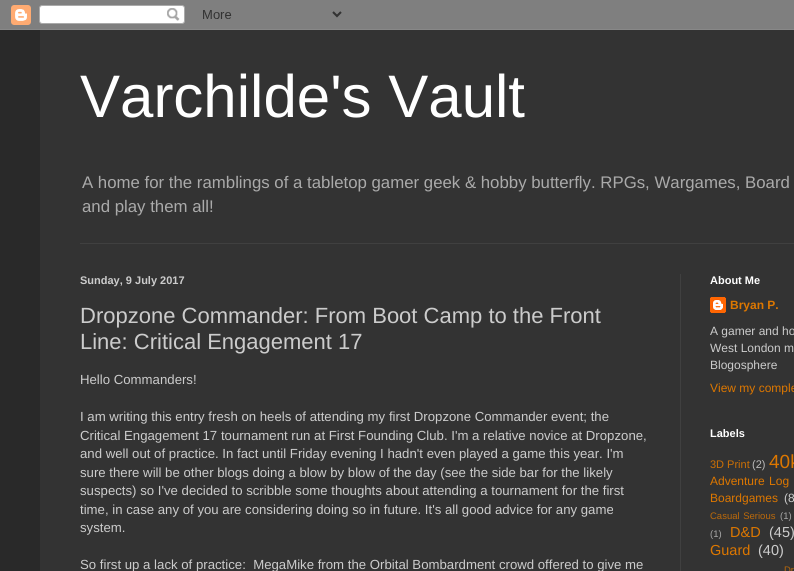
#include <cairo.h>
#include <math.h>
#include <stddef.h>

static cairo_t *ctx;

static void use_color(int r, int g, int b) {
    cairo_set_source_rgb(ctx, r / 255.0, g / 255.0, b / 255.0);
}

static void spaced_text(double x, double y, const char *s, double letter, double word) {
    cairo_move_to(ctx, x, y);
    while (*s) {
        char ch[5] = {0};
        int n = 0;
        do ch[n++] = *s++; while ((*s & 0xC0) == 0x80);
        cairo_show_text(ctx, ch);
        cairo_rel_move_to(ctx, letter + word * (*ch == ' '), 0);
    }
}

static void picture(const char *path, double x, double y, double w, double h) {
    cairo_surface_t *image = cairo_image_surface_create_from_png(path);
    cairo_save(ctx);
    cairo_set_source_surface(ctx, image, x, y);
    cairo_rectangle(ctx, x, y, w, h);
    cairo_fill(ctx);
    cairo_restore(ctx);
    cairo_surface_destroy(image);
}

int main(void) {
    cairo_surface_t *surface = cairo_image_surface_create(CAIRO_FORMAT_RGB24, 794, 571);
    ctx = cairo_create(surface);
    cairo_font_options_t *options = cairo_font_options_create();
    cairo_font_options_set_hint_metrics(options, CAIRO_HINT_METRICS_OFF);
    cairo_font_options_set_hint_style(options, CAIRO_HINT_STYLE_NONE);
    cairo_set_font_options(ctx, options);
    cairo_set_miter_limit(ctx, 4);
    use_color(41, 41, 41);
    cairo_paint(ctx);
    picture("img1.png", 0, 0, 794, 30);
    use_color(51, 51, 51);
    cairo_rectangle(ctx, 40, 30, 754, 541);
    cairo_fill(ctx);
    cairo_select_font_face(ctx, "Liberation Sans", CAIRO_FONT_SLANT_NORMAL, CAIRO_FONT_WEIGHT_NORMAL);
    cairo_set_font_size(ctx, 60);
    use_color(255, 255, 255);
    cairo_move_to(ctx, 80, 117);
    cairo_show_text(ctx, "Varchilde's Vault");
    cairo_set_font_size(ctx, 16.8);
    use_color(170, 170, 170);
    cairo_move_to(ctx, 82, 188);
    cairo_show_text(ctx, "A home for the ramblings of a tabletop gamer geek & hobby butterfly. RPGs, Wargames, Board");
    cairo_move_to(ctx, 82, 212);
    cairo_show_text(ctx, "and play them all!");
    use_color(64, 64, 64);
    cairo_rectangle(ctx, 80, 243, 714, 1);
    cairo_fill(ctx);
    cairo_rectangle(ctx, 680, 274, 1, 297);
    cairo_fill(ctx);
    cairo_select_font_face(ctx, "Liberation Sans", CAIRO_FONT_SLANT_NORMAL, CAIRO_FONT_WEIGHT_BOLD);
    cairo_set_font_size(ctx, 11);
    use_color(204, 204, 204);
    cairo_move_to(ctx, 80, 284);
    cairo_show_text(ctx, "Sunday, 9 July 2017");
    cairo_select_font_face(ctx, "Liberation Sans", CAIRO_FONT_SLANT_NORMAL, CAIRO_FONT_WEIGHT_NORMAL);
    cairo_set_font_size(ctx, 22);
    cairo_move_to(ctx, 80, 323);
    cairo_show_text(ctx, "Dropzone Commander: From Boot Camp to the Front");
    cairo_move_to(ctx, 80, 349);
    cairo_show_text(ctx, "Line: Critical Engagement 17");
    cairo_set_font_size(ctx, 13.2);
    cairo_move_to(ctx, 80, 384);
    cairo_show_text(ctx, "Hello Commanders!");
    cairo_move_to(ctx, 80, 421);
    cairo_show_text(ctx, "I am writing this entry fresh on heels of attending my first Dropzone Commander event; the");
    cairo_move_to(ctx, 80, 440);
    cairo_show_text(ctx, "Critical Engagement 17 tournament run at First Founding Club. I'm a relative novice at Dropzone,");
    cairo_move_to(ctx, 80, 458);
    cairo_show_text(ctx, "and well out of practice. In fact until Friday evening I hadn't even played a game this year. I'm");
    cairo_move_to(ctx, 80, 477);
    cairo_show_text(ctx, "sure there will be other blogs doing a blow by blow of the day (see the side bar for the likely");
    cairo_move_to(ctx, 80, 495);
    cairo_show_text(ctx, "suspects) so I've decided to scribble some thoughts about attending a tournament for the first");
    cairo_move_to(ctx, 80, 514);
    cairo_show_text(ctx, "time, in case any of you are considering doing so in future. It's all good advice for any game");
    cairo_move_to(ctx, 80, 532);
    cairo_show_text(ctx, "system.");
    cairo_move_to(ctx, 80, 569);
    cairo_show_text(ctx, "So first up a lack of practice:  MegaMike from the Orbital Bombardment crowd offered to give me");
    cairo_select_font_face(ctx, "Liberation Sans", CAIRO_FONT_SLANT_NORMAL, CAIRO_FONT_WEIGHT_BOLD);
    cairo_set_font_size(ctx, 11);
    use_color(255, 255, 255);
    cairo_move_to(ctx, 710, 284);
    cairo_show_text(ctx, "About Me");
    picture("img2.png", 710, 297, 16, 16);
    cairo_set_font_size(ctx, 12);
    use_color(221, 119, 0);
    cairo_move_to(ctx, 730, 309);
    cairo_show_text(ctx, "Bryan P.");
    cairo_select_font_face(ctx, "Liberation Sans", CAIRO_FONT_SLANT_NORMAL, CAIRO_FONT_WEIGHT_NORMAL);
    use_color(204, 204, 204);
    cairo_move_to(ctx, 710, 335);
    cairo_show_text(ctx, "A gamer and ho");
    cairo_move_to(ctx, 710, 352);
    cairo_show_text(ctx, "West London m");
    cairo_move_to(ctx, 710, 369);
    cairo_show_text(ctx, "Blogosphere");
    use_color(221, 119, 0);
    cairo_move_to(ctx, 710, 392);
    cairo_show_text(ctx, "View my comple");
    cairo_select_font_face(ctx, "Liberation Sans", CAIRO_FONT_SLANT_NORMAL, CAIRO_FONT_WEIGHT_BOLD);
    cairo_set_font_size(ctx, 11);
    use_color(255, 255, 255);
    cairo_move_to(ctx, 710, 437);
    cairo_show_text(ctx, "Labels");
    cairo_select_font_face(ctx, "Liberation Sans", CAIRO_FONT_SLANT_NORMAL, CAIRO_FONT_WEIGHT_NORMAL);
    use_color(204, 112, 5);
    cairo_move_to(ctx, 710, 468);
    cairo_show_text(ctx, "3D Print");
    use_color(189, 189, 189);
    cairo_move_to(ctx, 752, 468);
    cairo_show_text(ctx, "(2)");
    cairo_set_font_size(ctx, 19);
    use_color(221, 119, 0);
    cairo_move_to(ctx, 769, 468);
    cairo_show_text(ctx, "40k");
    cairo_set_font_size(ctx, 12);
    spaced_text(710, 485, "Adventure Log", 0, 1);
    cairo_move_to(ctx, 710, 502);
    cairo_show_text(ctx, "Boardgames");
    use_color(204, 204, 204);
    cairo_move_to(ctx, 784, 502);
    cairo_show_text(ctx, "(8");
    cairo_set_font_size(ctx, 9.5);
    use_color(187, 105, 10);
    spaced_text(710, 519, "Casual Serious", 0, 1);
    use_color(170, 170, 170);
    cairo_move_to(ctx, 780, 519);
    cairo_show_text(ctx, "(1)");
    cairo_move_to(ctx, 710, 537);
    cairo_show_text(ctx, "(1)");
    cairo_set_font_size(ctx, 14.5);
    use_color(221, 119, 0);
    cairo_move_to(ctx, 730, 537);
    cairo_show_text(ctx, "D&D");
    use_color(204, 204, 204);
    cairo_move_to(ctx, 769, 537);
    cairo_show_text(ctx, "(45)");
    use_color(221, 119, 0);
    cairo_move_to(ctx, 710, 555);
    cairo_show_text(ctx, "Guard");
    use_color(204, 204, 204);
    cairo_move_to(ctx, 758, 555);
    cairo_show_text(ctx, "(40)");
    cairo_set_font_size(ctx, 9.5);
    use_color(187, 105, 10);
    cairo_move_to(ctx, 784, 573);
    cairo_show_text(ctx, "Dr");
    cairo_surface_write_to_png(surface, "result.png");
    cairo_font_options_destroy(options);
    cairo_destroy(ctx);
    cairo_surface_destroy(surface);
    return 0;
}
